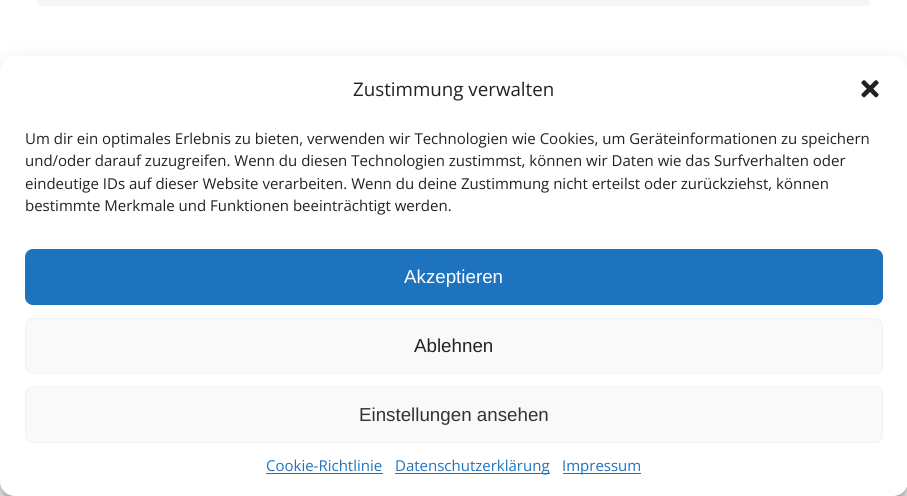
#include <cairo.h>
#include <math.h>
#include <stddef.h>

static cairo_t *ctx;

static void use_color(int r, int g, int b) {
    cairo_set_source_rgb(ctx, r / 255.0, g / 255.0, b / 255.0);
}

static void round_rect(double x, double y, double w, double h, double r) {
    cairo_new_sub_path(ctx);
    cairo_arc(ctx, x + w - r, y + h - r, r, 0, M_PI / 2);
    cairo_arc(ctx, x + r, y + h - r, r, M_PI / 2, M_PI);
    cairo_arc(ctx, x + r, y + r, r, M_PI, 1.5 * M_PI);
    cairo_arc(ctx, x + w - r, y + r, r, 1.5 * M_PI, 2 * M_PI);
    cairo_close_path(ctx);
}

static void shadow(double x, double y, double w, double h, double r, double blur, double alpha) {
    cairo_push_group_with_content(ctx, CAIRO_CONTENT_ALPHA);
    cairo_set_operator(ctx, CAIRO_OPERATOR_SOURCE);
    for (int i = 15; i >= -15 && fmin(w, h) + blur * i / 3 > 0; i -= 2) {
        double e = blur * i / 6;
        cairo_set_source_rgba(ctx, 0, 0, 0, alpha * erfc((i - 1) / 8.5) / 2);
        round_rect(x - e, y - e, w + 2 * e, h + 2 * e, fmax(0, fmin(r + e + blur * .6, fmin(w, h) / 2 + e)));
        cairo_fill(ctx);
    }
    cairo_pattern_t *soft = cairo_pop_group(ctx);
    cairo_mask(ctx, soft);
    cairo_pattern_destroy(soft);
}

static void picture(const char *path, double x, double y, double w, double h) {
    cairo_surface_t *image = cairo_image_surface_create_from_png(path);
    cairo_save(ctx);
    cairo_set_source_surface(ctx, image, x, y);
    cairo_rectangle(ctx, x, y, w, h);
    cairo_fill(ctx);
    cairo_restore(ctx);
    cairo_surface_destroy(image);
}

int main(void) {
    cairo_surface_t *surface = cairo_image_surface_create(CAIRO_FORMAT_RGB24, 907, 496);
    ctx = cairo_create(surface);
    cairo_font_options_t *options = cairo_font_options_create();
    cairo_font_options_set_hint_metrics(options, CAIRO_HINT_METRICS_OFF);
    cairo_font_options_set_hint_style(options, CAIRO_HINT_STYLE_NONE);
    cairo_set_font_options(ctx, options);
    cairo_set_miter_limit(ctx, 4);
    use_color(255, 255, 255);
    cairo_paint(ctx);
    use_color(246, 246, 246);
    cairo_rectangle(ctx, 38, 0, 832, 6);
    cairo_fill(ctx);
    use_color(0, 0, 0);
    shadow(0, 64, 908, 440, 15, 4, 0.23);
    shadow(0, 69, 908, 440, 15, 12.5, 0.19);
    use_color(255, 255, 255);
    round_rect(0, 56, 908, 440, 15);
    cairo_fill(ctx);
    cairo_select_font_face(ctx, "Open Sans", CAIRO_FONT_SLANT_NORMAL, CAIRO_FONT_WEIGHT_NORMAL);
    cairo_set_font_size(ctx, 18.75);
    use_color(34, 34, 34);
    cairo_move_to(ctx, 353, 96);
    cairo_show_text(ctx, "Zustimmung verwalten");
    picture("img1.png", 861, 80, 18, 18);
    cairo_set_font_size(ctx, 15);
    cairo_move_to(ctx, 25, 144);
    cairo_show_text(ctx, "Um dir ein optimales Erlebnis zu bieten, verwenden wir Technologien wie Cookies, um Geräteinformationen zu speichern");
    cairo_move_to(ctx, 25, 166);
    cairo_show_text(ctx, "und/oder darauf zuzugreifen. Wenn du diesen Technologien zustimmst, können wir Daten wie das Surfverhalten oder");
    cairo_move_to(ctx, 25, 189);
    cairo_show_text(ctx, "eindeutige IDs auf dieser Website verarbeiten. Wenn du deine Zustimmung nicht erteilst oder zurückziehst, können");
    cairo_move_to(ctx, 25, 211);
    cairo_show_text(ctx, "bestimmte Merkmale und Funktionen beeinträchtigt werden.");
    use_color(30, 115, 190);
    round_rect(25.5, 249.5, 857, 55, 7.5);
    cairo_fill_preserve(ctx);
    cairo_set_line_width(ctx, 1);
    cairo_stroke(ctx);
    cairo_select_font_face(ctx, "Liberation Sans", CAIRO_FONT_SLANT_NORMAL, CAIRO_FONT_WEIGHT_NORMAL);
    cairo_set_font_size(ctx, 18.75);
    use_color(255, 255, 255);
    cairo_move_to(ctx, 404, 283);
    cairo_show_text(ctx, "Akzeptieren");
    use_color(249, 249, 249);
    round_rect(25.5, 318.5, 857, 55, 7.5);
    cairo_fill_preserve(ctx);
    use_color(242, 242, 242);
    cairo_stroke(ctx);
    use_color(34, 34, 34);
    cairo_move_to(ctx, 414, 352);
    cairo_show_text(ctx, "Ablehnen");
    use_color(249, 249, 249);
    round_rect(25.5, 386.5, 857, 56, 7.5);
    cairo_fill_preserve(ctx);
    use_color(242, 242, 242);
    cairo_stroke(ctx);
    use_color(51, 51, 51);
    cairo_move_to(ctx, 359, 421);
    cairo_show_text(ctx, "Einstellungen ansehen");
    cairo_select_font_face(ctx, "Open Sans", CAIRO_FONT_SLANT_NORMAL, CAIRO_FONT_WEIGHT_NORMAL);
    cairo_set_font_size(ctx, 15);
    use_color(30, 115, 190);
    cairo_move_to(ctx, 266, 471);
    cairo_show_text(ctx, "Cookie-Richtlinie");
    cairo_rectangle(ctx, 266, 473, 117, 1);
    cairo_fill(ctx);
    cairo_rectangle(ctx, 395, 473, 155, 1);
    cairo_fill(ctx);
    cairo_move_to(ctx, 395, 471);
    cairo_show_text(ctx, "Datenschutzerklärung");
    cairo_rectangle(ctx, 563, 473, 78, 1);
    cairo_fill(ctx);
    cairo_move_to(ctx, 562, 471);
    cairo_show_text(ctx, "Impressum");
    cairo_surface_write_to_png(surface, "result.png");
    cairo_font_options_destroy(options);
    cairo_destroy(ctx);
    cairo_surface_destroy(surface);
    return 0;
}
